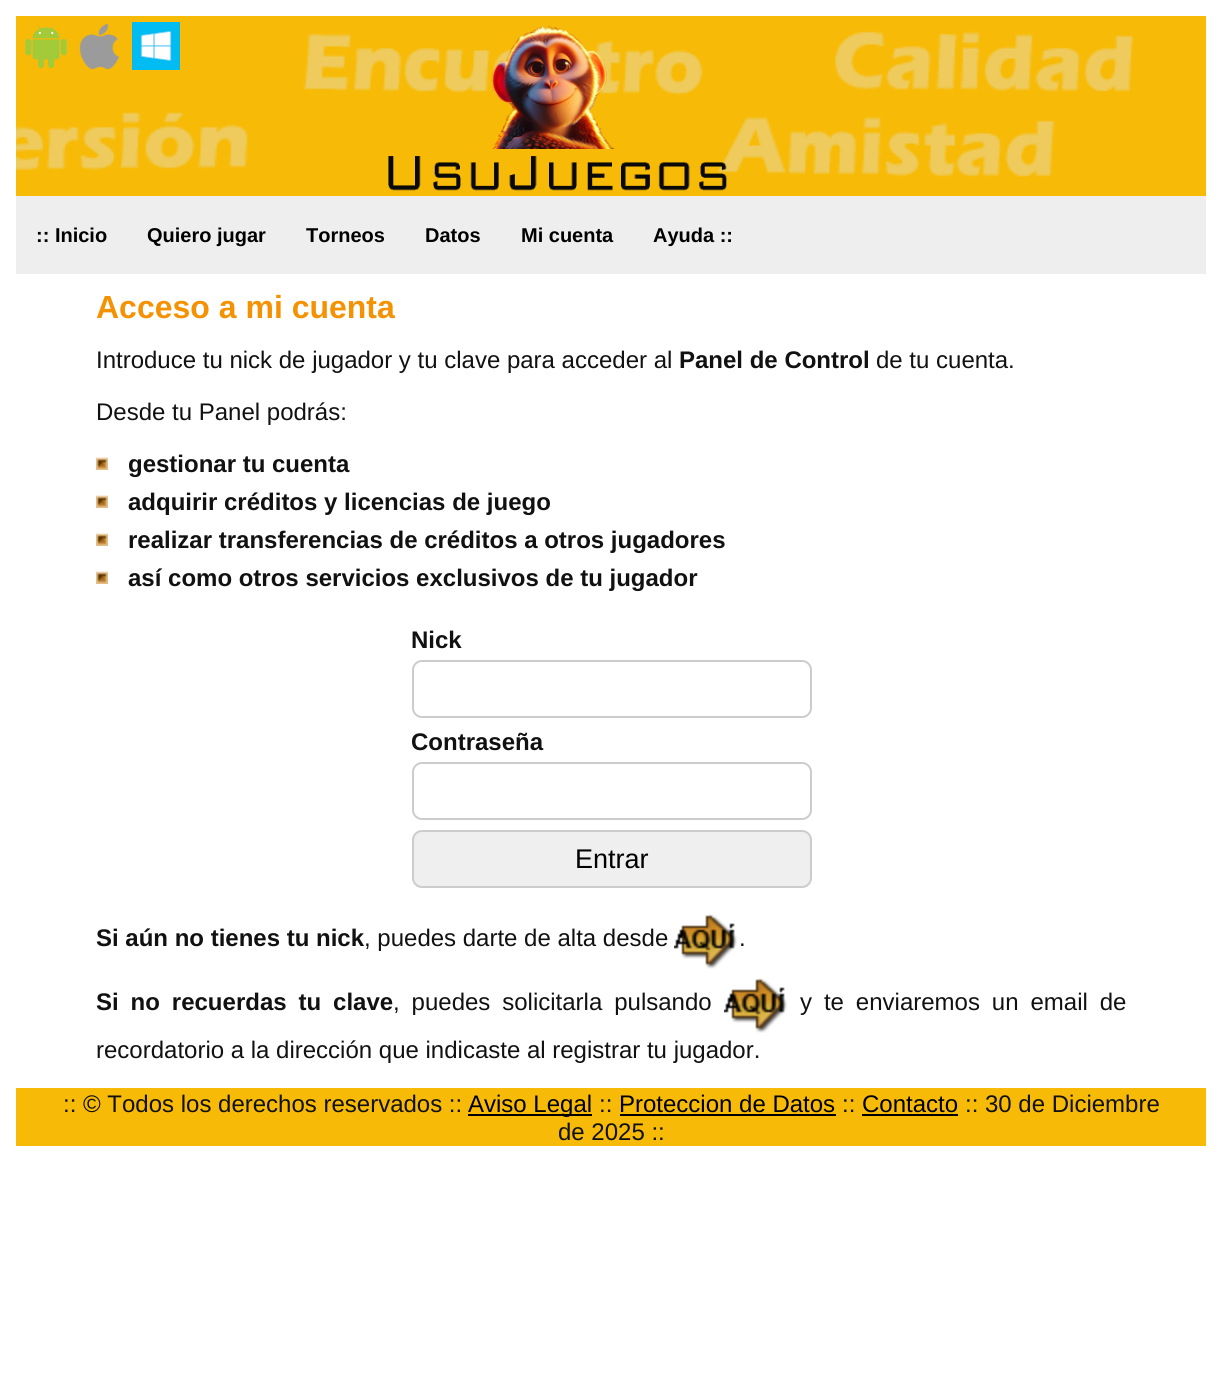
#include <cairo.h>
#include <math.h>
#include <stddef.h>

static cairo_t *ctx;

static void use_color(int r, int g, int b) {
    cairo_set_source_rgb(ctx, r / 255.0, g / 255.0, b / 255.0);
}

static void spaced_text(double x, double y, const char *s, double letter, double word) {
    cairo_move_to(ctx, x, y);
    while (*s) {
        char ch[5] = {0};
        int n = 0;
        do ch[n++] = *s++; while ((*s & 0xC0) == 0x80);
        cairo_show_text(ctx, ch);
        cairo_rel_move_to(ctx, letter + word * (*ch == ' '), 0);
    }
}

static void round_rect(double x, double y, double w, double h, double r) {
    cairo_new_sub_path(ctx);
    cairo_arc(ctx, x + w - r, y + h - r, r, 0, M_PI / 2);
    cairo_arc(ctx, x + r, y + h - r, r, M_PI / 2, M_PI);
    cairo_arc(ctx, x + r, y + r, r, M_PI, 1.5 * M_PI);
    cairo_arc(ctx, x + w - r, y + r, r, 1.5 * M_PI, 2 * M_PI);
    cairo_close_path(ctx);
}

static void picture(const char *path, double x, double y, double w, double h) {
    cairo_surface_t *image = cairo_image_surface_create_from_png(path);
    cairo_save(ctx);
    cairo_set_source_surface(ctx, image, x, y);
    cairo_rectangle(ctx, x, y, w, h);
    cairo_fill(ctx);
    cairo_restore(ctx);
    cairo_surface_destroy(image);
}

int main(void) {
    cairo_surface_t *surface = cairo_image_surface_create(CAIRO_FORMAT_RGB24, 1221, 1373);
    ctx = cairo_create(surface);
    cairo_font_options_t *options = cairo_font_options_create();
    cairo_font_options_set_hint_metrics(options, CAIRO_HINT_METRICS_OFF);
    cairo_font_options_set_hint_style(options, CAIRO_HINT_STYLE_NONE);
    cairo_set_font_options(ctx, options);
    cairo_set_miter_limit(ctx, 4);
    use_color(255, 255, 255);
    cairo_paint(ctx);
    use_color(247, 186, 6);
    cairo_rectangle(ctx, 16, 16, 1190, 180);
    cairo_fill(ctx);
    picture("img1.png", 16, 31, 1118, 146);
    picture("img2.png", 25, 25, 42, 44);
    picture("img3.png", 79, 23, 41, 47);
    picture("img4.png", 132, 22, 48, 48);
    picture("img5.png", 388, 25, 339, 166);
    use_color(238, 238, 238);
    cairo_rectangle(ctx, 16, 196, 1190, 78);
    cairo_fill(ctx);
    cairo_select_font_face(ctx, "Liberation Sans", CAIRO_FONT_SLANT_NORMAL, CAIRO_FONT_WEIGHT_BOLD);
    cairo_set_font_size(ctx, 20);
    use_color(0, 0, 0);
    cairo_move_to(ctx, 36, 242);
    cairo_show_text(ctx, ":: Inicio");
    cairo_move_to(ctx, 147, 242);
    cairo_show_text(ctx, "Quiero jugar");
    cairo_move_to(ctx, 306, 242);
    cairo_show_text(ctx, "Torneos");
    cairo_move_to(ctx, 425, 242);
    cairo_show_text(ctx, "Datos");
    cairo_move_to(ctx, 521, 242);
    cairo_show_text(ctx, "Mi cuenta");
    cairo_move_to(ctx, 653, 242);
    cairo_show_text(ctx, "Ayuda ::");
    cairo_set_font_size(ctx, 32);
    use_color(245, 146, 4);
    cairo_move_to(ctx, 96, 318);
    cairo_show_text(ctx, "Acceso a mi cuenta");
    cairo_select_font_face(ctx, "Liberation Sans", CAIRO_FONT_SLANT_NORMAL, CAIRO_FONT_WEIGHT_NORMAL);
    cairo_set_font_size(ctx, 24);
    use_color(17, 17, 17);
    cairo_move_to(ctx, 96, 368);
    cairo_show_text(ctx, "Introduce tu nick de jugador y tu clave para acceder al");
    cairo_select_font_face(ctx, "Liberation Sans", CAIRO_FONT_SLANT_NORMAL, CAIRO_FONT_WEIGHT_BOLD);
    cairo_move_to(ctx, 679, 368);
    cairo_show_text(ctx, "Panel de Control");
    cairo_select_font_face(ctx, "Liberation Sans", CAIRO_FONT_SLANT_NORMAL, CAIRO_FONT_WEIGHT_NORMAL);
    cairo_move_to(ctx, 876, 368);
    cairo_show_text(ctx, "de tu cuenta.");
    cairo_move_to(ctx, 96, 420);
    cairo_show_text(ctx, "Desde tu Panel podrás:");
    picture("img6.png", 96, 457, 12, 13);
    cairo_select_font_face(ctx, "Liberation Sans", CAIRO_FONT_SLANT_NORMAL, CAIRO_FONT_WEIGHT_BOLD);
    cairo_move_to(ctx, 128, 472);
    cairo_show_text(ctx, "gestionar tu cuenta");
    picture("img6.png", 96, 495, 12, 13);
    cairo_move_to(ctx, 128, 510);
    cairo_show_text(ctx, "adquirir créditos y licencias de juego");
    picture("img6.png", 96, 533, 12, 13);
    cairo_move_to(ctx, 128, 548);
    cairo_show_text(ctx, "realizar transferencias de créditos a otros jugadores");
    picture("img6.png", 96, 571, 12, 13);
    cairo_move_to(ctx, 128, 586);
    cairo_show_text(ctx, "así como otros servicios exclusivos de tu jugador");
    cairo_move_to(ctx, 411, 648);
    cairo_show_text(ctx, "Nick");
    round_rect(413, 661, 398, 56, 9);
    use_color(204, 204, 204);
    cairo_stroke(ctx);
    use_color(17, 17, 17);
    cairo_move_to(ctx, 411, 750);
    cairo_show_text(ctx, "Contraseña");
    round_rect(413, 763, 398, 56, 9);
    use_color(204, 204, 204);
    cairo_stroke(ctx);
    use_color(239, 239, 239);
    round_rect(413, 831, 398, 56, 9);
    cairo_fill_preserve(ctx);
    use_color(204, 204, 204);
    cairo_stroke(ctx);
    cairo_select_font_face(ctx, "Liberation Sans", CAIRO_FONT_SLANT_NORMAL, CAIRO_FONT_WEIGHT_NORMAL);
    cairo_set_font_size(ctx, 27);
    use_color(0, 0, 0);
    cairo_move_to(ctx, 575, 868);
    cairo_show_text(ctx, "Entrar");
    cairo_select_font_face(ctx, "Liberation Sans", CAIRO_FONT_SLANT_NORMAL, CAIRO_FONT_WEIGHT_BOLD);
    cairo_set_font_size(ctx, 24);
    use_color(17, 17, 17);
    cairo_move_to(ctx, 96, 946);
    cairo_show_text(ctx, "Si aún no tienes tu nick");
    cairo_select_font_face(ctx, "Liberation Sans", CAIRO_FONT_SLANT_NORMAL, CAIRO_FONT_WEIGHT_NORMAL);
    cairo_move_to(ctx, 364, 946);
    cairo_show_text(ctx, ", puedes darte de alta desde");
    picture("img7.png", 674, 914, 63, 55);
    cairo_move_to(ctx, 739, 946);
    cairo_show_text(ctx, ".");
    cairo_select_font_face(ctx, "Liberation Sans", CAIRO_FONT_SLANT_NORMAL, CAIRO_FONT_WEIGHT_BOLD);
    spaced_text(96, 1010, "Si no recuerdas tu clave", 0, 5.25);
    cairo_select_font_face(ctx, "Liberation Sans", CAIRO_FONT_SLANT_NORMAL, CAIRO_FONT_WEIGHT_NORMAL);
    spaced_text(393, 1010, ", puedes solicitarla pulsando", 0, 5.25);
    picture("img7.png", 724, 978, 63, 55);
    spaced_text(800, 1010, "y te enviaremos un email de", 0, 5.25);
    cairo_move_to(ctx, 96, 1058);
    cairo_show_text(ctx, "recordatorio a la dirección que indicaste al registrar tu jugador.");
    use_color(247, 186, 6);
    cairo_rectangle(ctx, 16, 1088, 1190, 58);
    cairo_fill(ctx);
    use_color(17, 17, 17);
    cairo_move_to(ctx, 63, 1112);
    cairo_show_text(ctx, ":: © Todos los derechos reservados ::");
    use_color(0, 0, 0);
    cairo_rectangle(ctx, 468, 1114, 124, 2);
    cairo_fill(ctx);
    cairo_move_to(ctx, 468, 1112);
    cairo_show_text(ctx, "Aviso Legal");
    use_color(17, 17, 17);
    cairo_move_to(ctx, 599, 1112);
    cairo_show_text(ctx, "::");
    use_color(0, 0, 0);
    cairo_move_to(ctx, 619, 1112);
    cairo_show_text(ctx, "Proteccion de Datos");
    cairo_rectangle(ctx, 620, 1114, 216, 2);
    cairo_fill(ctx);
    use_color(17, 17, 17);
    cairo_move_to(ctx, 842, 1112);
    cairo_show_text(ctx, "::");
    use_color(0, 0, 0);
    cairo_move_to(ctx, 862, 1112);
    cairo_show_text(ctx, "Contacto");
    cairo_rectangle(ctx, 862, 1114, 96, 2);
    cairo_fill(ctx);
    use_color(17, 17, 17);
    cairo_move_to(ctx, 965, 1112);
    cairo_show_text(ctx, ":: 30 de Diciembre");
    cairo_move_to(ctx, 558, 1140);
    cairo_show_text(ctx, "de 2025 ::");
    cairo_surface_write_to_png(surface, "result.png");
    cairo_font_options_destroy(options);
    cairo_destroy(ctx);
    cairo_surface_destroy(surface);
    return 0;
}
